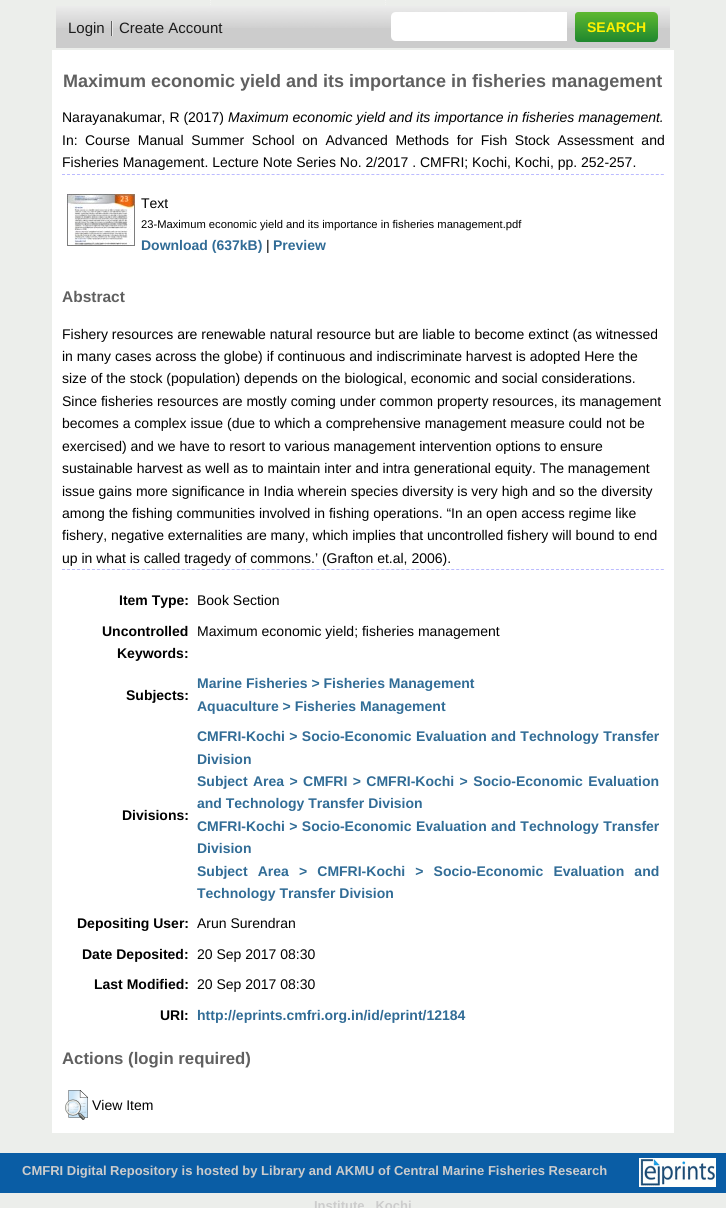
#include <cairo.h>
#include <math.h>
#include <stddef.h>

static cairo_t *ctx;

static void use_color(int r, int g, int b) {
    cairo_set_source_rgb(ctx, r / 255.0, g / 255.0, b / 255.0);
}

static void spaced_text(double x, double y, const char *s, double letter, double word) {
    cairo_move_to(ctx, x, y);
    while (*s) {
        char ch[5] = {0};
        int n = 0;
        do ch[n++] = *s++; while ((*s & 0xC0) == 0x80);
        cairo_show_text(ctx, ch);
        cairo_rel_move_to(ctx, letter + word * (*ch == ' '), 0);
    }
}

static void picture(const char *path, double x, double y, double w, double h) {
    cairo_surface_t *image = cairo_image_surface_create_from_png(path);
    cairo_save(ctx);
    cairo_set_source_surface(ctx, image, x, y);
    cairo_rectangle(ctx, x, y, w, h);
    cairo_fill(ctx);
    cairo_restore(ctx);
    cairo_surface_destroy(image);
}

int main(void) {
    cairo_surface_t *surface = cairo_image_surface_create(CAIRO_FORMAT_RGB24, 726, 1208);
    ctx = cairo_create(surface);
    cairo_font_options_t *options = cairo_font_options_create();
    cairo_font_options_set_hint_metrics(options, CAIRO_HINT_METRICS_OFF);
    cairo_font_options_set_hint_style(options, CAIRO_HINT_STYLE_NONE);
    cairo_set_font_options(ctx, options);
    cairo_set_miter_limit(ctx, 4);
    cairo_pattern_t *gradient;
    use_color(236, 238, 235);
    cairo_paint(ctx);
    cairo_new_path(ctx);
    cairo_move_to(ctx, 210.5, -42);
    cairo_line_to(ctx, 210.5, 6);
    use_color(242, 243, 241);
    cairo_set_line_width(ctx, 1);
    cairo_set_dash(ctx, (double[]){1, 1}, 2, 0);
    cairo_stroke(ctx);
    cairo_new_path(ctx);
    cairo_move_to(ctx, 385.5, -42);
    cairo_line_to(ctx, 385.5, 6);
    cairo_stroke(ctx);
    use_color(204, 204, 204);
    cairo_rectangle(ctx, 56, 6, 614, 42);
    cairo_fill(ctx);
    picture("img1.png", 56, 6, 614, 22);
    cairo_select_font_face(ctx, "Liberation Sans", CAIRO_FONT_SLANT_NORMAL, CAIRO_FONT_WEIGHT_NORMAL);
    cairo_set_font_size(ctx, 15);
    use_color(28, 28, 28);
    cairo_move_to(ctx, 68, 33);
    cairo_show_text(ctx, "Login");
    use_color(96, 96, 96);
    cairo_rectangle(ctx, 111, 21, 1, 15);
    cairo_fill(ctx);
    use_color(28, 28, 28);
    cairo_move_to(ctx, 119, 33);
    cairo_show_text(ctx, "Create Account");
    use_color(232, 232, 232);
    cairo_rectangle(ctx, 112, 21, 1, 15);
    cairo_fill(ctx);
    use_color(255, 255, 255);
    cairo_new_path(ctx);
    cairo_move_to(ctx, 396, 12);
    cairo_line_to(ctx, 567, 12);
    cairo_line_to(ctx, 567, 41);
    cairo_line_to(ctx, 396, 41);
    cairo_curve_to(ctx, 393, 41, 391, 39, 391, 36);
    cairo_line_to(ctx, 391, 17);
    cairo_curve_to(ctx, 391, 14, 393, 12, 396, 12);
    cairo_close_path(ctx);
    cairo_fill(ctx);
    gradient = cairo_pattern_create_linear(575, 12, 575, 42);
    cairo_pattern_add_color_stop_rgba(gradient, 0, 0.369, 0.722, 0.188, 1);
    cairo_pattern_add_color_stop_rgba(gradient, 1, 0.122, 0.529, 0.18, 1);
    cairo_set_source(ctx, gradient);
    cairo_pattern_destroy(gradient);
    cairo_new_path(ctx);
    cairo_move_to(ctx, 578, 12);
    cairo_line_to(ctx, 653, 12);
    cairo_curve_to(ctx, 656, 12, 658, 14, 658, 17);
    cairo_line_to(ctx, 658, 37);
    cairo_curve_to(ctx, 658, 40, 656, 42, 653, 42);
    cairo_line_to(ctx, 578, 42);
    cairo_curve_to(ctx, 576.5, 42, 575, 40.5, 575, 39);
    cairo_line_to(ctx, 575, 15);
    cairo_curve_to(ctx, 575, 13.5, 576.5, 12, 578, 12);
    cairo_close_path(ctx);
    cairo_fill(ctx);
    cairo_select_font_face(ctx, "Liberation Sans", CAIRO_FONT_SLANT_NORMAL, CAIRO_FONT_WEIGHT_BOLD);
    cairo_set_font_size(ctx, 14);
    use_color(255, 241, 0);
    cairo_move_to(ctx, 587, 32);
    cairo_show_text(ctx, "SEARCH");
    use_color(255, 255, 255);
    cairo_rectangle(ctx, 52, 50, 622, 1083);
    cairo_fill(ctx);
    cairo_set_font_size(ctx, 18);
    use_color(96, 96, 96);
    cairo_move_to(ctx, 63, 87);
    cairo_show_text(ctx, "Maximum economic yield and its importance in fisheries management");
    cairo_new_path(ctx);
    cairo_move_to(ctx, 62, 174.5);
    cairo_line_to(ctx, 664, 174.5);
    use_color(187, 187, 255);
    cairo_set_dash(ctx, (double[]){3, 1.99}, 2, 0);
    cairo_stroke(ctx);
    cairo_select_font_face(ctx, "Liberation Sans", CAIRO_FONT_SLANT_NORMAL, CAIRO_FONT_WEIGHT_NORMAL);
    cairo_set_font_size(ctx, 14);
    use_color(0, 0, 0);
    cairo_move_to(ctx, 62, 122);
    cairo_show_text(ctx, "Narayanakumar, R (2017)");
    cairo_select_font_face(ctx, "Liberation Sans", CAIRO_FONT_SLANT_ITALIC, CAIRO_FONT_WEIGHT_NORMAL);
    cairo_move_to(ctx, 228, 122);
    cairo_show_text(ctx, "Maximum economic yield and its importance in fisheries management.");
    cairo_select_font_face(ctx, "Liberation Sans", CAIRO_FONT_SLANT_NORMAL, CAIRO_FONT_WEIGHT_NORMAL);
    cairo_move_to(ctx, 62, 145);
    cairo_show_text(ctx, "In:");
    spaced_text(85, 145, "Course Manual Summer School on Advanced Methods for Fish Stock Assessment and", 0, 3.75);
    cairo_move_to(ctx, 62, 167);
    cairo_show_text(ctx, "Fisheries Management. Lecture Note Series No. 2/2017 . CMFRI; Kochi, Kochi, pp. 252-257.");
    picture("img2.png", 67, 194, 68, 52);
    cairo_move_to(ctx, 141, 208);
    cairo_show_text(ctx, "Text");
    cairo_set_font_size(ctx, 11.2);
    cairo_move_to(ctx, 141, 228);
    cairo_show_text(ctx, "23-Maximum economic yield and its importance in fisheries management.pdf");
    cairo_select_font_face(ctx, "Liberation Sans", CAIRO_FONT_SLANT_NORMAL, CAIRO_FONT_WEIGHT_BOLD);
    cairo_set_font_size(ctx, 14);
    use_color(49, 108, 150);
    cairo_move_to(ctx, 141, 250);
    cairo_show_text(ctx, "Download (637kB)");
    cairo_select_font_face(ctx, "Liberation Sans", CAIRO_FONT_SLANT_NORMAL, CAIRO_FONT_WEIGHT_NORMAL);
    use_color(0, 0, 0);
    cairo_move_to(ctx, 266, 250);
    cairo_show_text(ctx, "|");
    cairo_select_font_face(ctx, "Liberation Sans", CAIRO_FONT_SLANT_NORMAL, CAIRO_FONT_WEIGHT_BOLD);
    use_color(49, 108, 150);
    cairo_move_to(ctx, 273, 250);
    cairo_show_text(ctx, "Preview");
    cairo_set_font_size(ctx, 15.5);
    use_color(96, 96, 96);
    cairo_move_to(ctx, 62, 302);
    cairo_show_text(ctx, "Abstract");
    cairo_new_path(ctx);
    cairo_move_to(ctx, 62, 569.5);
    cairo_line_to(ctx, 664, 569.5);
    use_color(187, 187, 255);
    cairo_stroke(ctx);
    cairo_select_font_face(ctx, "Liberation Sans", CAIRO_FONT_SLANT_NORMAL, CAIRO_FONT_WEIGHT_NORMAL);
    cairo_set_font_size(ctx, 14);
    use_color(0, 0, 0);
    cairo_move_to(ctx, 62, 339);
    cairo_show_text(ctx, "Fishery resources are renewable natural resource but are liable to become extinct (as witnessed");
    cairo_move_to(ctx, 62, 361);
    cairo_show_text(ctx, "in many cases across the globe) if continuous and indiscriminate harvest is adopted Here the");
    cairo_move_to(ctx, 62, 383);
    cairo_show_text(ctx, "size of the stock (population) depends on the biological, economic and social considerations.");
    cairo_move_to(ctx, 62, 406);
    cairo_show_text(ctx, "Since fisheries resources are mostly coming under common property resources, its management");
    cairo_move_to(ctx, 62, 428);
    cairo_show_text(ctx, "becomes a complex issue (due to which a comprehensive management measure could not be");
    cairo_move_to(ctx, 62, 451);
    cairo_show_text(ctx, "exercised) and we have to resort to various management intervention options to ensure");
    cairo_move_to(ctx, 62, 473);
    cairo_show_text(ctx, "sustainable harvest as well as to maintain inter and intra generational equity. The management");
    cairo_move_to(ctx, 62, 496);
    cairo_show_text(ctx, "issue gains more significance in India wherein species diversity is very high and so the diversity");
    cairo_move_to(ctx, 62, 518);
    cairo_show_text(ctx, "among the fishing communities involved in fishing operations. “In an open access regime like");
    cairo_move_to(ctx, 62, 540);
    cairo_show_text(ctx, "fishery, negative externalities are many, which implies that uncontrolled fishery will bound to end");
    cairo_move_to(ctx, 62, 563);
    cairo_show_text(ctx, "up in what is called tragedy of commons.’ (Grafton et.al, 2006).");
    cairo_select_font_face(ctx, "Liberation Sans", CAIRO_FONT_SLANT_NORMAL, CAIRO_FONT_WEIGHT_BOLD);
    cairo_move_to(ctx, 119, 605);
    cairo_show_text(ctx, "Item Type:");
    cairo_select_font_face(ctx, "Liberation Sans", CAIRO_FONT_SLANT_NORMAL, CAIRO_FONT_WEIGHT_NORMAL);
    cairo_move_to(ctx, 197, 605);
    cairo_show_text(ctx, "Book Section");
    cairo_select_font_face(ctx, "Liberation Sans", CAIRO_FONT_SLANT_NORMAL, CAIRO_FONT_WEIGHT_BOLD);
    cairo_move_to(ctx, 102, 636);
    cairo_show_text(ctx, "Uncontrolled");
    cairo_move_to(ctx, 117, 658);
    cairo_show_text(ctx, "Keywords:");
    cairo_select_font_face(ctx, "Liberation Sans", CAIRO_FONT_SLANT_NORMAL, CAIRO_FONT_WEIGHT_NORMAL);
    cairo_move_to(ctx, 197, 636);
    cairo_show_text(ctx, "Maximum economic yield; fisheries management");
    cairo_select_font_face(ctx, "Liberation Sans", CAIRO_FONT_SLANT_NORMAL, CAIRO_FONT_WEIGHT_BOLD);
    cairo_move_to(ctx, 126, 700);
    cairo_show_text(ctx, "Subjects:");
    use_color(49, 108, 150);
    cairo_move_to(ctx, 197, 688);
    cairo_show_text(ctx, "Marine Fisheries > Fisheries Management");
    cairo_move_to(ctx, 197, 711);
    cairo_show_text(ctx, "Aquaculture > Fisheries Management");
    use_color(0, 0, 0);
    cairo_move_to(ctx, 122, 820);
    cairo_show_text(ctx, "Divisions:");
    use_color(49, 108, 150);
    spaced_text(197, 741, "CMFRI-Kochi > Socio-Economic Evaluation and Technology Transfer", 0, 0.5);
    cairo_move_to(ctx, 197, 764);
    cairo_show_text(ctx, "Division");
    spaced_text(197, 786, "Subject Area > CMFRI > CMFRI-Kochi > Socio-Economic Evaluation", 0, 1.5);
    cairo_move_to(ctx, 197, 808);
    cairo_show_text(ctx, "and Technology Transfer Division");
    spaced_text(197, 831, "CMFRI-Kochi > Socio-Economic Evaluation and Technology Transfer", 0, 0.5);
    cairo_move_to(ctx, 197, 853);
    cairo_show_text(ctx, "Division");
    spaced_text(197, 876, "Subject Area > CMFRI-Kochi > Socio-Economic Evaluation and", 0, 6.25);
    cairo_move_to(ctx, 197, 898);
    cairo_show_text(ctx, "Technology Transfer Division");
    use_color(0, 0, 0);
    cairo_move_to(ctx, 77, 928);
    cairo_show_text(ctx, "Depositing User:");
    cairo_select_font_face(ctx, "Liberation Sans", CAIRO_FONT_SLANT_NORMAL, CAIRO_FONT_WEIGHT_NORMAL);
    cairo_move_to(ctx, 197, 928);
    cairo_show_text(ctx, "Arun Surendran");
    cairo_select_font_face(ctx, "Liberation Sans", CAIRO_FONT_SLANT_NORMAL, CAIRO_FONT_WEIGHT_BOLD);
    cairo_move_to(ctx, 82, 959);
    cairo_show_text(ctx, "Date Deposited:");
    cairo_select_font_face(ctx, "Liberation Sans", CAIRO_FONT_SLANT_NORMAL, CAIRO_FONT_WEIGHT_NORMAL);
    cairo_move_to(ctx, 197, 959);
    cairo_show_text(ctx, "20 Sep 2017 08:30");
    cairo_select_font_face(ctx, "Liberation Sans", CAIRO_FONT_SLANT_NORMAL, CAIRO_FONT_WEIGHT_BOLD);
    cairo_move_to(ctx, 94, 989);
    cairo_show_text(ctx, "Last Modified:");
    cairo_select_font_face(ctx, "Liberation Sans", CAIRO_FONT_SLANT_NORMAL, CAIRO_FONT_WEIGHT_NORMAL);
    cairo_move_to(ctx, 197, 989);
    cairo_show_text(ctx, "20 Sep 2017 08:30");
    cairo_select_font_face(ctx, "Liberation Sans", CAIRO_FONT_SLANT_NORMAL, CAIRO_FONT_WEIGHT_BOLD);
    cairo_move_to(ctx, 160, 1020);
    cairo_show_text(ctx, "URI:");
    use_color(49, 108, 150);
    cairo_move_to(ctx, 197, 1020);
    cairo_show_text(ctx, "http://eprints.cmfri.org.in/id/eprint/12184");
    cairo_set_font_size(ctx, 16.75);
    use_color(96, 96, 96);
    cairo_move_to(ctx, 62, 1064);
    cairo_show_text(ctx, "Actions (login required)");
    picture("img3.png", 65, 1090, 23, 30);
    cairo_select_font_face(ctx, "Liberation Sans", CAIRO_FONT_SLANT_NORMAL, CAIRO_FONT_WEIGHT_NORMAL);
    cairo_set_font_size(ctx, 14);
    use_color(0, 0, 0);
    cairo_move_to(ctx, 92, 1110);
    cairo_show_text(ctx, "View Item");
    use_color(10, 93, 165);
    cairo_rectangle(ctx, 0, 1153, 726, 40);
    cairo_fill(ctx);
    cairo_select_font_face(ctx, "Liberation Sans", CAIRO_FONT_SLANT_NORMAL, CAIRO_FONT_WEIGHT_BOLD);
    cairo_set_font_size(ctx, 13);
    use_color(204, 204, 204);
    cairo_move_to(ctx, 22, 1175);
    cairo_show_text(ctx, "CMFRI Digital Repository is hosted by Library and AKMU of Central Marine Fisheries Research");
    cairo_move_to(ctx, 314, 1210);
    cairo_show_text(ctx, "Institute , Kochi");
    picture("img4.png", 639, 1158, 77, 29);
    cairo_surface_write_to_png(surface, "result.png");
    cairo_font_options_destroy(options);
    cairo_destroy(ctx);
    cairo_surface_destroy(surface);
    return 0;
}
